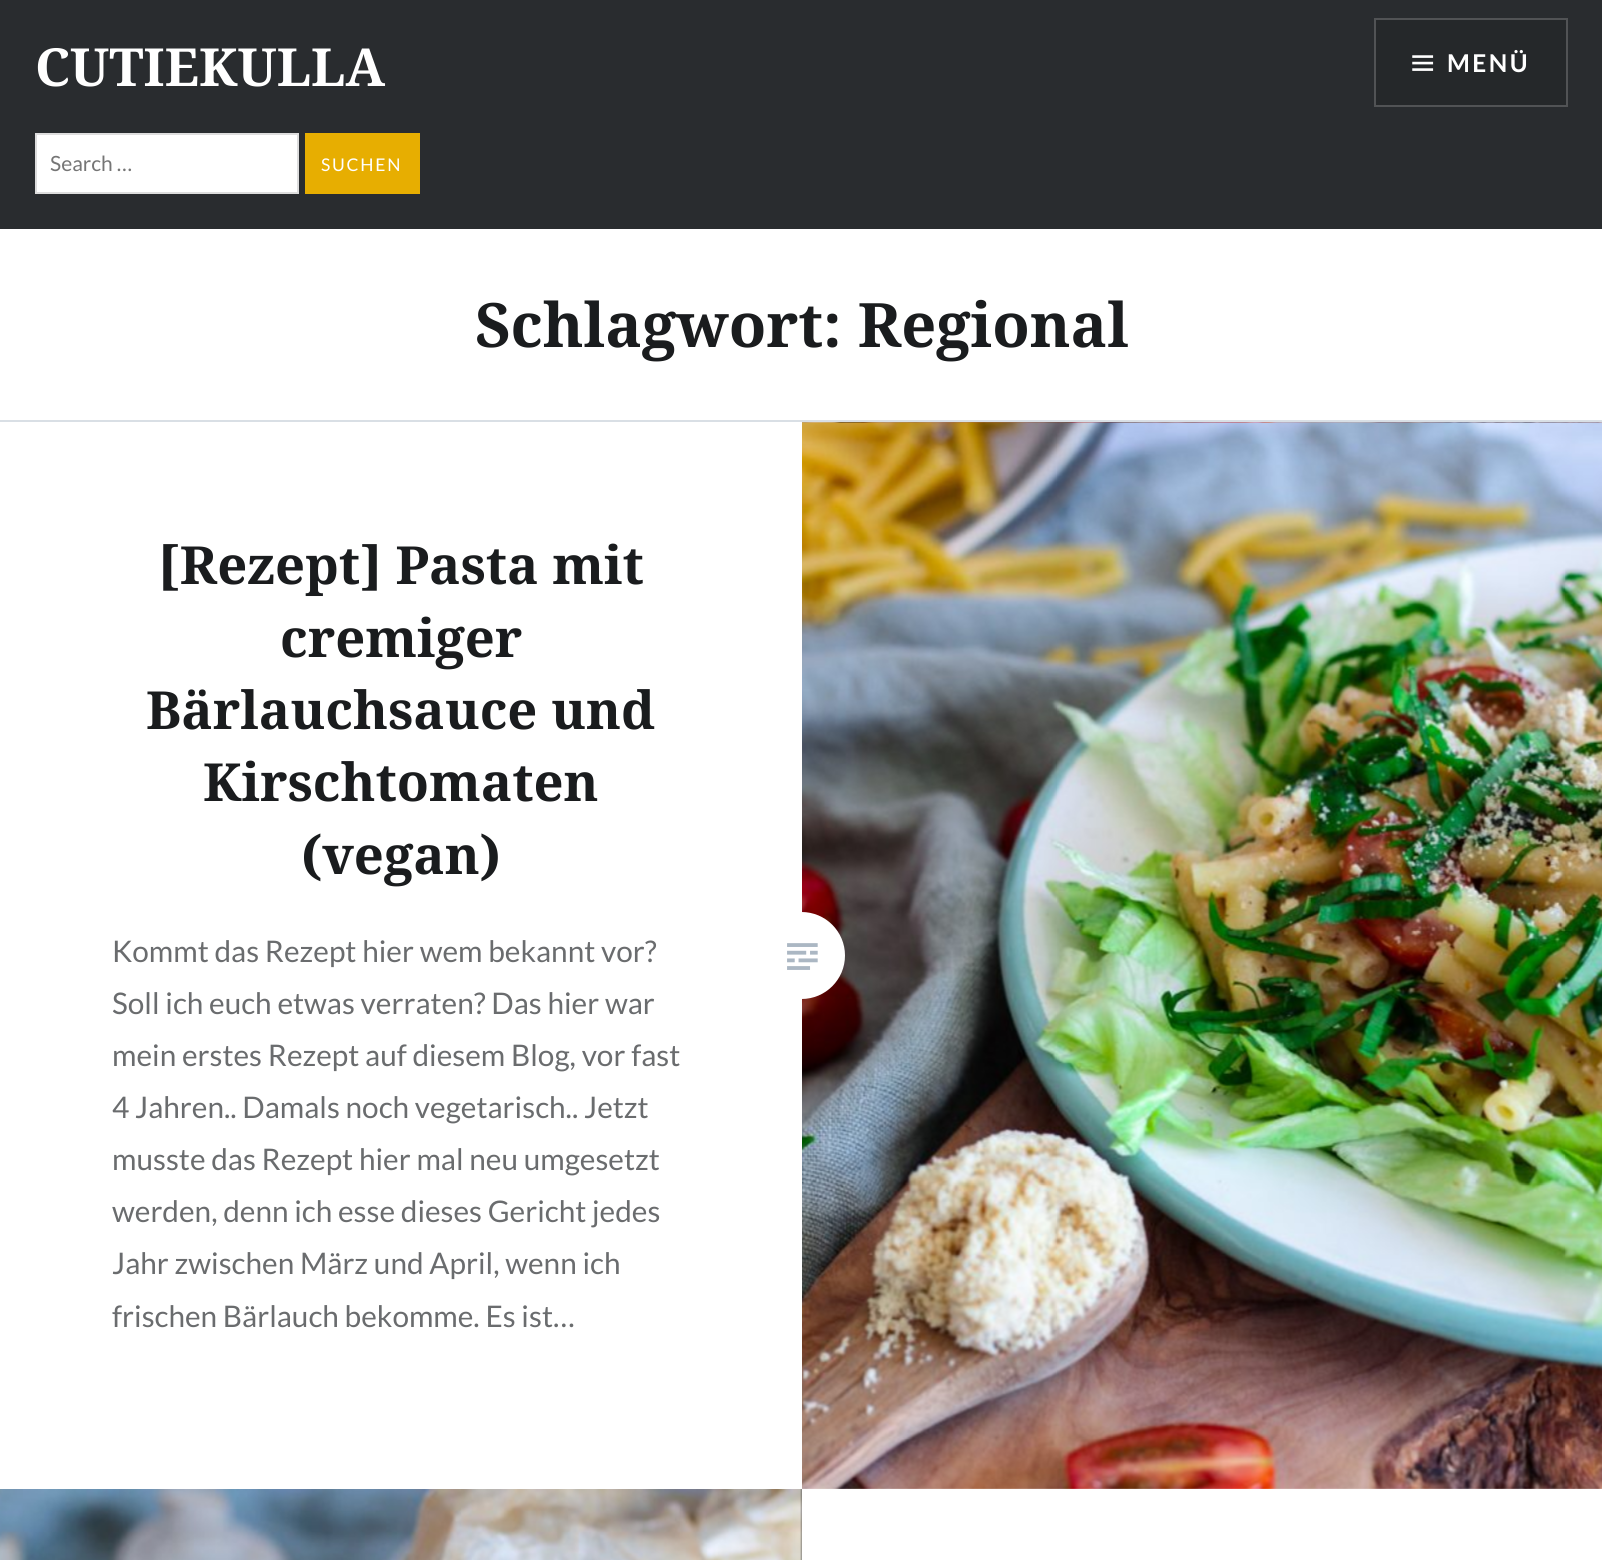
#include <cairo.h>
#include <math.h>
#include <stddef.h>

static cairo_t *ctx;

static void use_color(int r, int g, int b) {
    cairo_set_source_rgb(ctx, r / 255.0, g / 255.0, b / 255.0);
}

static void spaced_text(double x, double y, const char *s, double letter, double word) {
    cairo_move_to(ctx, x, y);
    while (*s) {
        char ch[5] = {0};
        int n = 0;
        do ch[n++] = *s++; while ((*s & 0xC0) == 0x80);
        cairo_show_text(ctx, ch);
        cairo_rel_move_to(ctx, letter + word * (*ch == ' '), 0);
    }
}

static void picture(const char *path, double x, double y, double w, double h) {
    cairo_surface_t *image = cairo_image_surface_create_from_png(path);
    cairo_save(ctx);
    cairo_set_source_surface(ctx, image, x, y);
    cairo_rectangle(ctx, x, y, w, h);
    cairo_fill(ctx);
    cairo_restore(ctx);
    cairo_surface_destroy(image);
}

int main(void) {
    cairo_surface_t *surface = cairo_image_surface_create(CAIRO_FORMAT_RGB24, 1602, 1560);
    ctx = cairo_create(surface);
    cairo_font_options_t *options = cairo_font_options_create();
    cairo_font_options_set_hint_metrics(options, CAIRO_HINT_METRICS_OFF);
    cairo_font_options_set_hint_style(options, CAIRO_HINT_STYLE_NONE);
    cairo_set_font_options(ctx, options);
    cairo_set_miter_limit(ctx, 4);
    use_color(255, 255, 255);
    cairo_paint(ctx);
    use_color(41, 44, 47);
    cairo_rectangle(ctx, 0, 0, 1602, 229);
    cairo_fill(ctx);
    cairo_select_font_face(ctx, "Noto Serif", CAIRO_FONT_SLANT_NORMAL, CAIRO_FONT_WEIGHT_BOLD);
    cairo_set_font_size(ctx, 52.5);
    use_color(255, 255, 255);
    cairo_move_to(ctx, 35, 86);
    cairo_show_text(ctx, "CUTIEKULLA");
    use_color(37, 40, 42);
    cairo_rectangle(ctx, 1375, 19, 192, 87);
    cairo_fill_preserve(ctx);
    use_color(81, 83, 85);
    cairo_stroke(ctx);
    picture("img1.png", 1412, 55, 22, 16);
    cairo_select_font_face(ctx, "Lato", CAIRO_FONT_SLANT_NORMAL, CAIRO_FONT_WEIGHT_BOLD);
    cairo_set_font_size(ctx, 24.5);
    use_color(255, 255, 255);
    spaced_text(1447, 72, "MENÜ", 2.5, 0);
    cairo_rectangle(ctx, 36, 134, 262, 59);
    cairo_fill_preserve(ctx);
    use_color(221, 221, 221);
    cairo_stroke(ctx);
    cairo_select_font_face(ctx, "Lato", CAIRO_FONT_SLANT_NORMAL, CAIRO_FONT_WEIGHT_NORMAL);
    cairo_set_font_size(ctx, 21);
    use_color(117, 117, 117);
    cairo_move_to(ctx, 50, 171);
    cairo_show_text(ctx, "Search …");
    use_color(231, 174, 1);
    cairo_rectangle(ctx, 305, 133, 115, 61);
    cairo_fill(ctx);
    cairo_set_font_size(ctx, 17.5);
    use_color(255, 255, 255);
    spaced_text(321, 171, "SUCHEN", 1.75, 0);
    use_color(217, 223, 229);
    cairo_rectangle(ctx, 0, 420, 1602, 2);
    cairo_fill(ctx);
    cairo_select_font_face(ctx, "Noto Serif", CAIRO_FONT_SLANT_NORMAL, CAIRO_FONT_WEIGHT_BOLD);
    cairo_set_font_size(ctx, 61.25);
    use_color(26, 28, 30);
    cairo_move_to(ctx, 475, 347);
    cairo_show_text(ctx, "Schlagwort: Regional");
    cairo_set_font_size(ctx, 52.5);
    cairo_move_to(ctx, 158, 584);
    cairo_show_text(ctx, "[Rezept] Pasta mit");
    cairo_move_to(ctx, 280, 657);
    cairo_show_text(ctx, "cremiger");
    cairo_move_to(ctx, 146, 729);
    cairo_show_text(ctx, "Bärlauchsauce und");
    cairo_move_to(ctx, 203, 801);
    cairo_show_text(ctx, "Kirschtomaten");
    cairo_move_to(ctx, 301, 874);
    cairo_show_text(ctx, "(vegan)");
    cairo_select_font_face(ctx, "Lato", CAIRO_FONT_SLANT_NORMAL, CAIRO_FONT_WEIGHT_NORMAL);
    cairo_set_font_size(ctx, 29.75);
    use_color(106, 108, 110);
    cairo_move_to(ctx, 112, 962);
    cairo_show_text(ctx, "Kommt das Rezept hier wem bekannt vor?");
    cairo_move_to(ctx, 112, 1014);
    cairo_show_text(ctx, "Soll ich euch etwas verraten? Das hier war");
    cairo_move_to(ctx, 112, 1066);
    cairo_show_text(ctx, "mein erstes Rezept auf diesem Blog, vor fast");
    cairo_move_to(ctx, 112, 1118);
    cairo_show_text(ctx, "4 Jahren.. Damals noch vegetarisch.. Jetzt");
    cairo_move_to(ctx, 112, 1170);
    cairo_show_text(ctx, "musste das Rezept hier mal neu umgesetzt");
    cairo_move_to(ctx, 112, 1222);
    cairo_show_text(ctx, "werden, denn ich esse dieses Gericht jedes");
    cairo_move_to(ctx, 112, 1274);
    cairo_show_text(ctx, "Jahr zwischen März und April, wenn ich");
    cairo_move_to(ctx, 112, 1327);
    cairo_show_text(ctx, "frischen Bärlauch bekomme. Es ist…");
    picture("img3.png", 802, 422, 800, 1067);
    use_color(255, 255, 255);
    cairo_arc(ctx, 801.5, 955.5, 43.5, 0, 2 * M_PI);
    cairo_fill(ctx);
    picture("img2.png", 787, 943, 31, 27);
    use_color(36, 38, 41);
    cairo_rectangle(ctx, 800, 1489, 2, 71);
    cairo_fill(ctx);
    picture("img4.png", 0, 1489, 802, 71);
    cairo_surface_write_to_png(surface, "result.png");
    cairo_font_options_destroy(options);
    cairo_destroy(ctx);
    cairo_surface_destroy(surface);
    return 0;
}
